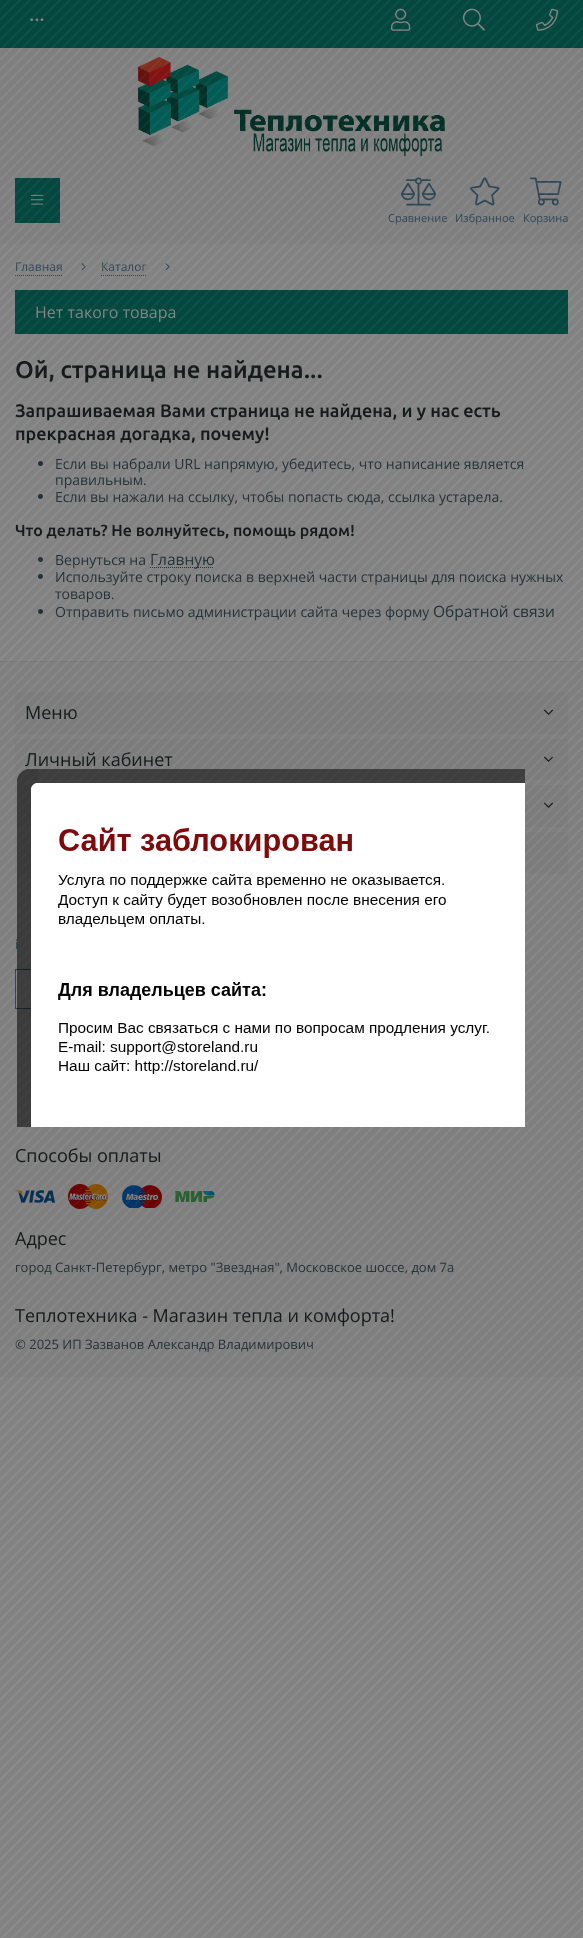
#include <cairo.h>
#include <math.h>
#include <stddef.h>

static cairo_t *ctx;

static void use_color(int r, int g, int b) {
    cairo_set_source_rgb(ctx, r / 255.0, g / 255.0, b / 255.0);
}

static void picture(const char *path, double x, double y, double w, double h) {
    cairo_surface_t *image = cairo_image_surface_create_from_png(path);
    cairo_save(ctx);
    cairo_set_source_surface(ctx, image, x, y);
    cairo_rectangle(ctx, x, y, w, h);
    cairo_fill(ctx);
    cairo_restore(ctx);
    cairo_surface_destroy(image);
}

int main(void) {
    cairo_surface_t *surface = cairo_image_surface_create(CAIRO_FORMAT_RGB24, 583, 1938);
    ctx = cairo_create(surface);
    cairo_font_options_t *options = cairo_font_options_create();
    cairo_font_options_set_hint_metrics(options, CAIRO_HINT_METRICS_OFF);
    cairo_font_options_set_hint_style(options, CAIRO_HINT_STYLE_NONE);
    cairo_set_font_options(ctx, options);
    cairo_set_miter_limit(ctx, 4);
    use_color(255, 255, 255);
    cairo_paint(ctx);
    use_color(248, 248, 248);
    cairo_rectangle(ctx, 0, 48, 583, 196);
    cairo_fill(ctx);
    use_color(0, 137, 121);
    cairo_rectangle(ctx, 0, 0, 583, 48);
    cairo_fill(ctx);
    picture("img2.png", 30, 18, 14, 4);
    picture("img3.png", 391, 8, 20, 23);
    picture("img4.png", 463, 8, 22, 23);
    picture("img5.png", 536, 8, 22, 23);
    picture("img6.png", 138, 57, 307, 100);
    cairo_rectangle(ctx, 15, 178, 45, 45);
    cairo_fill(ctx);
    picture("img7.png", 31, 194, 13, 11);
    picture("img8.png", 401, 177, 35, 29);
    cairo_select_font_face(ctx, "Open Sans", CAIRO_FONT_SLANT_NORMAL, CAIRO_FONT_WEIGHT_NORMAL);
    cairo_set_font_size(ctx, 11);
    use_color(85, 134, 166);
    cairo_move_to(ctx, 388, 222);
    cairo_show_text(ctx, "Сравнение");
    picture("img9.png", 470, 177, 30, 29);
    cairo_move_to(ctx, 455, 222);
    cairo_show_text(ctx, "Избранное");
    picture("img10.png", 530, 177, 32, 29);
    cairo_move_to(ctx, 523, 222);
    cairo_show_text(ctx, "Корзина");
    cairo_set_font_size(ctx, 12);
    cairo_move_to(ctx, 15, 271);
    cairo_show_text(ctx, "Главная");
    cairo_new_path(ctx);
    cairo_move_to(ctx, 15, 275.5);
    cairo_line_to(ctx, 63, 275.5);
    cairo_set_line_width(ctx, 1);
    cairo_set_dash(ctx, (double[]){1, 1}, 2, 0);
    cairo_stroke(ctx);
    picture("img11.png", 81, 263, 5, 8);
    cairo_move_to(ctx, 101, 271);
    cairo_show_text(ctx, "Каталог");
    cairo_new_path(ctx);
    cairo_move_to(ctx, 101, 275.5);
    cairo_line_to(ctx, 147, 275.5);
    cairo_stroke(ctx);
    picture("img11.png", 165, 263, 5, 8);
    use_color(0, 137, 121);
    cairo_rectangle(ctx, 15, 290, 553, 44);
    cairo_fill(ctx);
    cairo_set_font_size(ctx, 16);
    use_color(255, 255, 255);
    cairo_move_to(ctx, 35, 318);
    cairo_show_text(ctx, "Нет такого товара");
    cairo_select_font_face(ctx, "Ubuntu Medium", CAIRO_FONT_SLANT_NORMAL, CAIRO_FONT_WEIGHT_NORMAL);
    cairo_set_font_size(ctx, 24);
    use_color(33, 43, 45);
    cairo_move_to(ctx, 15, 378);
    cairo_show_text(ctx, "Ой, страница не найдена...");
    cairo_set_font_size(ctx, 18);
    cairo_move_to(ctx, 15, 417);
    cairo_show_text(ctx, "Запрашиваемая Вами страница не найдена, и у нас есть");
    cairo_move_to(ctx, 15, 440);
    cairo_show_text(ctx, "прекрасная догадка, почему!");
    use_color(61, 90, 104);
    cairo_new_path(ctx);
    cairo_arc(ctx, 40.5, 463.5, 2.5, 0, 2 * M_PI);
    cairo_fill(ctx);
    cairo_select_font_face(ctx, "Open Sans", CAIRO_FONT_SLANT_NORMAL, CAIRO_FONT_WEIGHT_NORMAL);
    cairo_set_font_size(ctx, 14);
    cairo_move_to(ctx, 55, 469);
    cairo_show_text(ctx, "Если вы набрали URL напрямую, убедитесь, что написание является");
    cairo_move_to(ctx, 55, 485);
    cairo_show_text(ctx, "правильным.");
    cairo_new_path(ctx);
    cairo_arc(ctx, 40.5, 496.5, 2.5, 0, 2 * M_PI);
    cairo_fill(ctx);
    cairo_move_to(ctx, 55, 502);
    cairo_show_text(ctx, "Если вы нажали на ссылку, чтобы попасть сюда, ссылка устарела.");
    cairo_select_font_face(ctx, "Ubuntu Medium", CAIRO_FONT_SLANT_NORMAL, CAIRO_FONT_WEIGHT_NORMAL);
    cairo_set_font_size(ctx, 16);
    use_color(33, 43, 45);
    cairo_move_to(ctx, 15, 536);
    cairo_show_text(ctx, "Что делать? Не волнуйтесь, помощь рядом!");
    use_color(61, 90, 104);
    cairo_new_path(ctx);
    cairo_arc(ctx, 40.5, 559.5, 2.5, 0, 2 * M_PI);
    cairo_fill(ctx);
    cairo_select_font_face(ctx, "Open Sans", CAIRO_FONT_SLANT_NORMAL, CAIRO_FONT_WEIGHT_NORMAL);
    cairo_set_font_size(ctx, 14);
    cairo_move_to(ctx, 55, 565);
    cairo_show_text(ctx, "Вернуться на");
    cairo_set_font_size(ctx, 15.5);
    cairo_move_to(ctx, 150, 565);
    cairo_show_text(ctx, "Главную");
    cairo_new_path(ctx);
    cairo_move_to(ctx, 150, 567.5);
    cairo_line_to(ctx, 214, 567.5);
    cairo_stroke(ctx);
    cairo_arc(ctx, 40.5, 576.5, 2.5, 0, 2 * M_PI);
    cairo_fill(ctx);
    cairo_set_font_size(ctx, 14);
    cairo_move_to(ctx, 55, 582);
    cairo_show_text(ctx, "Используйте строку поиска в верхней части страницы для поиска нужных");
    cairo_move_to(ctx, 55, 599);
    cairo_show_text(ctx, "товаров.");
    cairo_new_path(ctx);
    cairo_arc(ctx, 40.5, 611.5, 2.5, 0, 2 * M_PI);
    cairo_fill(ctx);
    cairo_move_to(ctx, 55, 617);
    cairo_show_text(ctx, "Отправить письмо админиcтрации сайта через форму");
    cairo_set_font_size(ctx, 15.5);
    cairo_move_to(ctx, 433, 617);
    cairo_show_text(ctx, "Обратной связи");
    use_color(248, 248, 248);
    cairo_rectangle(ctx, 0, 662, 583, 715);
    cairo_fill(ctx);
    use_color(231, 236, 238);
    cairo_rectangle(ctx, 0, 661, 583, 1);
    cairo_fill(ctx);
    use_color(243, 243, 243);
    cairo_rectangle(ctx, 15, 692, 553, 42);
    cairo_fill(ctx);
    cairo_set_font_size(ctx, 18);
    use_color(33, 43, 45);
    cairo_move_to(ctx, 25, 719);
    cairo_show_text(ctx, "Меню");
    picture("img12.png", 544, 709, 9, 6);
    use_color(243, 243, 243);
    cairo_rectangle(ctx, 15, 739, 553, 41);
    cairo_fill(ctx);
    use_color(33, 43, 45);
    cairo_move_to(ctx, 25, 766);
    cairo_show_text(ctx, "Личный кабинет");
    picture("img12.png", 544, 756, 9, 6);
    use_color(243, 243, 243);
    cairo_rectangle(ctx, 15, 785, 553, 42);
    cairo_fill(ctx);
    picture("img12.png", 544, 802, 9, 6);
    cairo_rectangle(ctx, 15, 832, 553, 42);
    cairo_fill(ctx);
    cairo_set_font_size(ctx, 13);
    use_color(85, 134, 166);
    cairo_move_to(ctx, 15, 949);
    cairo_show_text(ctx, "i");
    use_color(255, 255, 255);
    cairo_rectangle(ctx, 16, 970, 15, 38);
    cairo_fill(ctx);
    cairo_rectangle(ctx, 15.5, 969.5, 449, 39);
    use_color(85, 134, 166);
    cairo_set_dash(ctx, NULL, 0, 0);
    cairo_stroke(ctx);
    cairo_set_font_size(ctx, 18);
    use_color(33, 43, 45);
    cairo_move_to(ctx, 15, 1162);
    cairo_show_text(ctx, "Способы оплаты");
    picture("img13.png", 15, 1190, 40, 13);
    picture("img14.png", 68, 1184, 40, 25);
    picture("img15.png", 122, 1185, 40, 23);
    picture("img16.png", 175, 1191, 40, 11);
    cairo_move_to(ctx, 15, 1245);
    cairo_show_text(ctx, "Адрес");
    cairo_set_font_size(ctx, 13);
    use_color(61, 90, 104);
    cairo_move_to(ctx, 15, 1272);
    cairo_show_text(ctx, "город Санкт-Петербург, метро \"Звездная\", Московское шоссе, дом 7а");
    cairo_set_font_size(ctx, 18);
    use_color(33, 43, 45);
    cairo_move_to(ctx, 15, 1322);
    cairo_show_text(ctx, "Теплотехника - Магазин тепла и комфорта!");
    cairo_set_font_size(ctx, 13);
    use_color(61, 90, 104);
    cairo_move_to(ctx, 15, 1349);
    cairo_show_text(ctx, "© 2025 ИП Зазванов Александр Владимирович");
    picture("img1.png", 0, 0, 583, 1938);
    picture("img17.png", 17, 769, 21, 21);
    picture("img18.png", 38, 769, 487, 21);
    picture("img19.png", 17, 790, 21, 337);
    use_color(255, 255, 255);
    cairo_rectangle(ctx, 38, 790, 487, 337);
    cairo_fill(ctx);
    picture("img20.png", 58, 827, 431, 247);
    cairo_surface_write_to_png(surface, "result.png");
    cairo_font_options_destroy(options);
    cairo_destroy(ctx);
    cairo_surface_destroy(surface);
    return 0;
}
